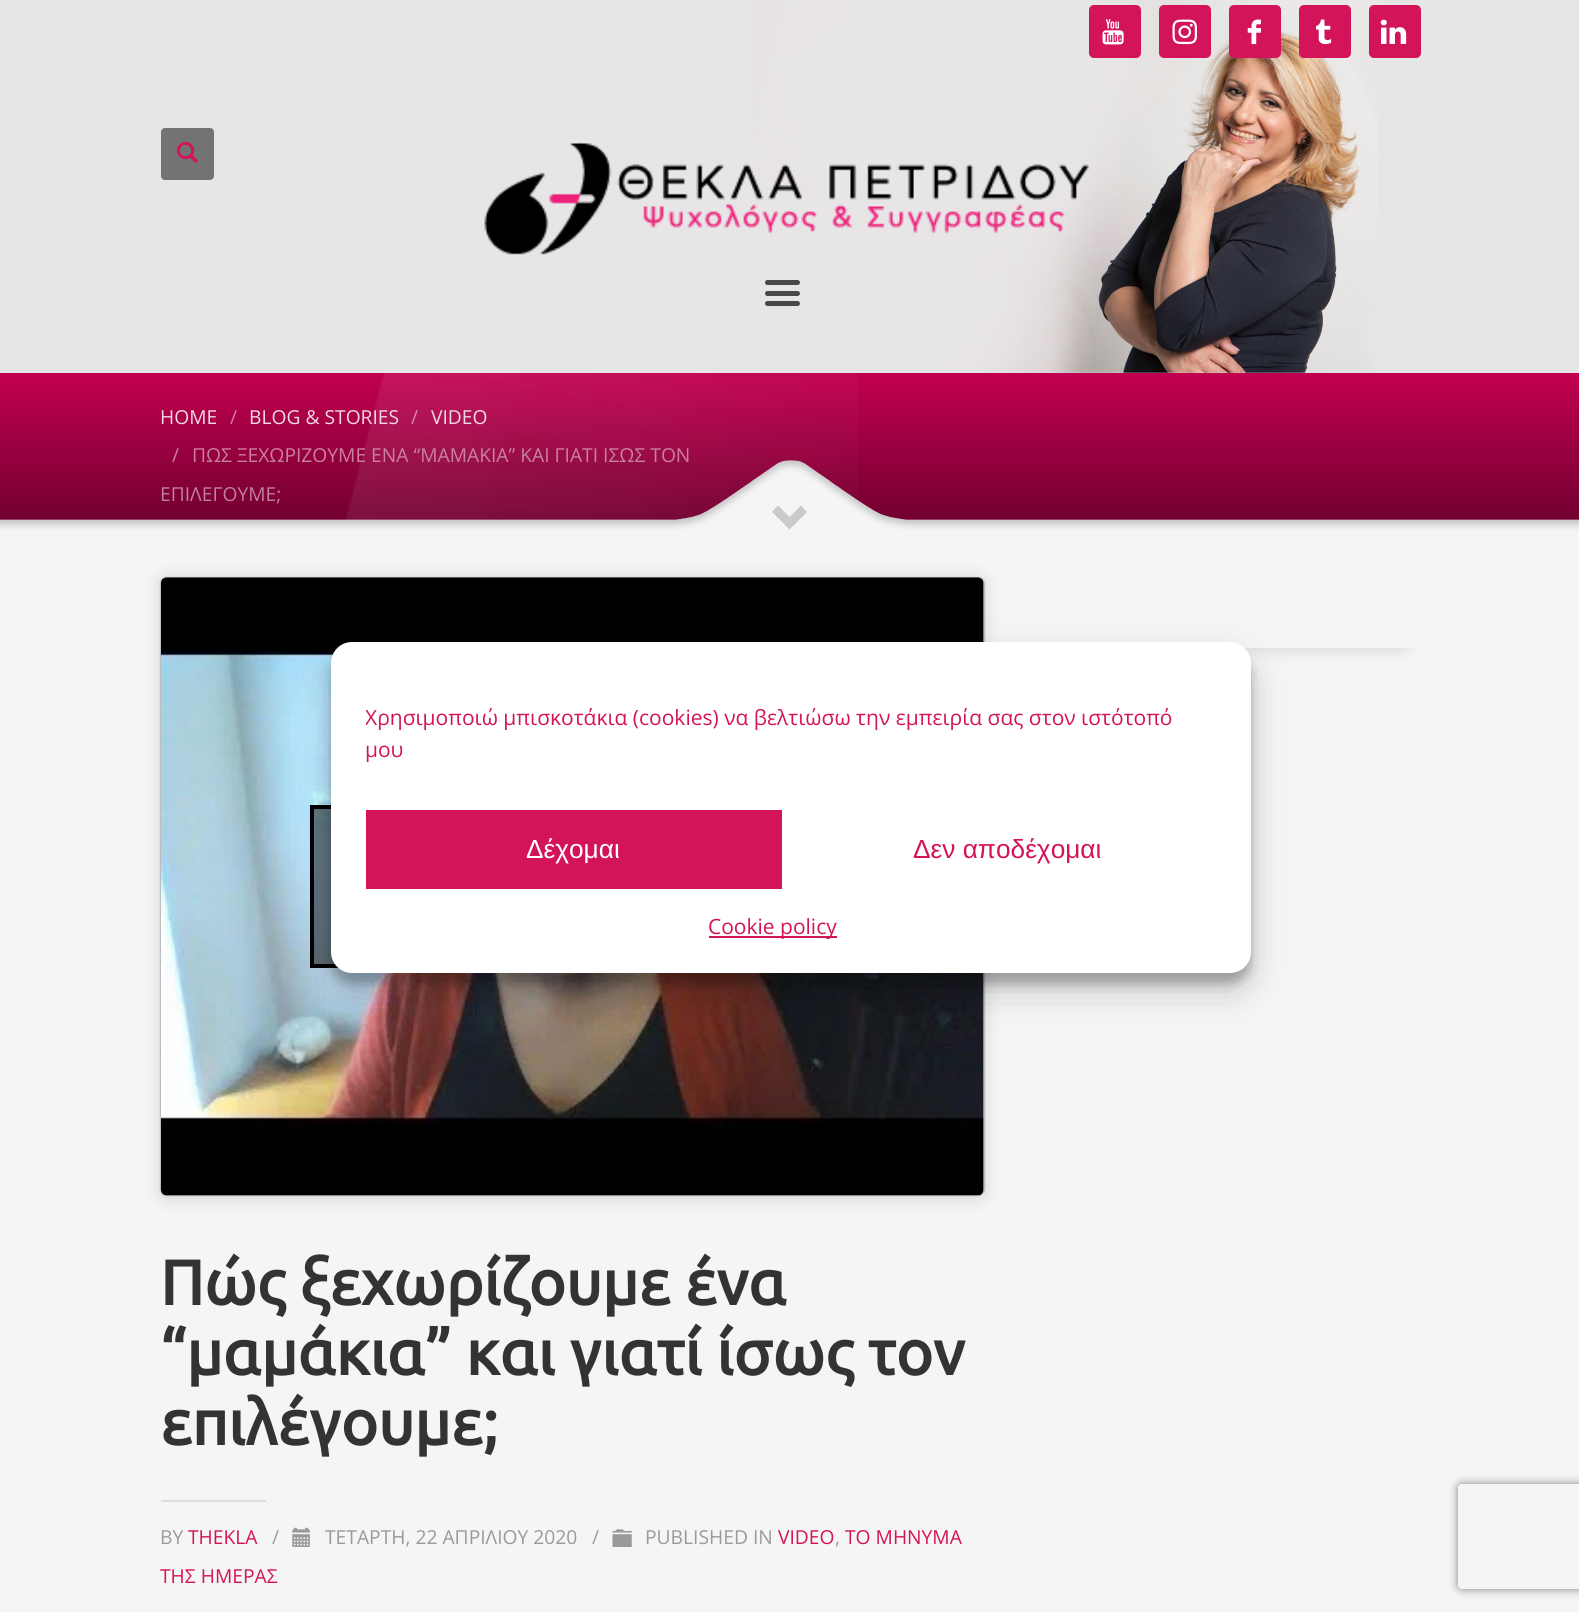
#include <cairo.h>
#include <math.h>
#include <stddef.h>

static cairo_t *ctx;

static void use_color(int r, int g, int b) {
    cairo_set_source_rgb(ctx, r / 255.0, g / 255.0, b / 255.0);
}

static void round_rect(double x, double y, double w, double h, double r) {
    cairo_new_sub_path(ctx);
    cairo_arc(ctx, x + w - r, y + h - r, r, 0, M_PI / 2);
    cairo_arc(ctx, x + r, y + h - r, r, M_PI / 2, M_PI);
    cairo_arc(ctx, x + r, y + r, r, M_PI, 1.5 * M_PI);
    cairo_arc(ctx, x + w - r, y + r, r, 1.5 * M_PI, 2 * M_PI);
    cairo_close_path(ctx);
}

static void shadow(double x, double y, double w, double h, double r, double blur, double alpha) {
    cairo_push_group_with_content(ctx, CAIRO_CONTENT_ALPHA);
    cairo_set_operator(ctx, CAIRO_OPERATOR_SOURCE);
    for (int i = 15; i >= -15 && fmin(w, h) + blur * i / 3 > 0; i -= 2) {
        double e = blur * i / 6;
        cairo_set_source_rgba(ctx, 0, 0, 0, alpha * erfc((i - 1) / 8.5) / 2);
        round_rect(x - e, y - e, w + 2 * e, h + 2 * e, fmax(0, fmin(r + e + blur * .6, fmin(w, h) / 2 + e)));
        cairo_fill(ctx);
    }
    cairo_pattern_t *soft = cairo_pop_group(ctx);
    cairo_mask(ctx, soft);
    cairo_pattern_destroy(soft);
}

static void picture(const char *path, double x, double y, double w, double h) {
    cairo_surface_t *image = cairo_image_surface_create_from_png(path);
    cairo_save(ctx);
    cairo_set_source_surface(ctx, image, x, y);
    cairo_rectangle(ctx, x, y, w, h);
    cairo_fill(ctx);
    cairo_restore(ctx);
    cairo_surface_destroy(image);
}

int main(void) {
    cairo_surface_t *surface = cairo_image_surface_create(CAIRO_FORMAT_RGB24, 1579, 1612);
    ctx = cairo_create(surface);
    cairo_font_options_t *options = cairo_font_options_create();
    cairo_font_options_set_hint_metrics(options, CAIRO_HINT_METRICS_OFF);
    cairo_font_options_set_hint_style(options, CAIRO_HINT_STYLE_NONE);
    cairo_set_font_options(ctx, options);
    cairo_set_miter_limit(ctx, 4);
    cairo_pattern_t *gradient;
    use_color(245, 245, 245);
    cairo_paint(ctx);
    use_color(231, 229, 230);
    cairo_rectangle(ctx, 0, 0, 1579, 373);
    cairo_fill(ctx);
    picture("img1.png", 753, 0, 625, 373);
    use_color(211, 20, 90);
    round_rect(1089, 5, 52, 53, 5);
    cairo_fill(ctx);
    picture("img2.png", 1102, 19, 22, 26);
    round_rect(1159, 5, 52, 53, 5);
    cairo_fill(ctx);
    picture("img3.png", 1172, 19, 25, 26);
    round_rect(1229, 5, 52, 53, 5);
    cairo_fill(ctx);
    picture("img4.png", 1247, 19, 14, 26);
    round_rect(1299, 5, 52, 53, 5);
    cairo_fill(ctx);
    picture("img5.png", 1316, 19, 16, 26);
    round_rect(1369, 5, 52, 53, 5);
    cairo_fill(ctx);
    picture("img6.png", 1380, 19, 27, 25);
    use_color(116, 115, 115);
    round_rect(161, 128, 53, 52, 4);
    cairo_fill(ctx);
    picture("img7.png", 176, 141, 22, 22);
    picture("img8.png", 484, 142, 605, 113);
    use_color(74, 71, 72);
    round_rect(765, 280, 35, 5, 2.5);
    cairo_fill(ctx);
    round_rect(765, 291, 35, 5, 2.5);
    cairo_fill(ctx);
    round_rect(765, 301, 35, 5, 2.5);
    cairo_fill(ctx);
    gradient = cairo_pattern_create_linear(790, 341, 790, 534);
    cairo_pattern_add_color_stop_rgba(gradient, 0, 0.831, 0, 0.341, 1);
    cairo_pattern_add_color_stop_rgba(gradient, 1, 0.416, 0, 0.173, 1);
    cairo_set_source(ctx, gradient);
    cairo_pattern_destroy(gradient);
    cairo_rectangle(ctx, 0, 373, 1579, 147);
    cairo_fill(ctx);
    picture("img9.png", 345, 373, 513, 147);
    cairo_select_font_face(ctx, "Open Sans", CAIRO_FONT_SLANT_NORMAL, CAIRO_FONT_WEIGHT_NORMAL);
    cairo_set_font_size(ctx, 19.25);
    use_color(242, 217, 227);
    cairo_move_to(ctx, 160, 424);
    cairo_show_text(ctx, "HOME");
    use_color(213, 128, 163);
    cairo_move_to(ctx, 230, 424);
    cairo_show_text(ctx, "/");
    use_color(242, 217, 227);
    cairo_move_to(ctx, 249, 424);
    cairo_show_text(ctx, "BLOG & STORIES");
    use_color(216, 137, 169);
    cairo_move_to(ctx, 411, 424);
    cairo_show_text(ctx, "/");
    use_color(242, 217, 227);
    cairo_move_to(ctx, 431, 424);
    cairo_show_text(ctx, "VIDEO");
    use_color(202, 128, 158);
    cairo_move_to(ctx, 172, 462);
    cairo_show_text(ctx, "/");
    cairo_move_to(ctx, 192, 462);
    cairo_show_text(ctx, "ΠΩΣ ΞΕΧΩΡΙΖΟΥΜΕ ΕΝΑ “ΜΑΜΑΚΙΑ” ΚΑΙ ΓΙΑΤΙ ΙΣΩΣ ΤΟΝ");
    use_color(192, 128, 154);
    cairo_move_to(ctx, 160, 501);
    cairo_show_text(ctx, "ΕΠΙΛΕΓΟΥΜΕ;");
    picture("img10.png", 0, 460, 1579, 74);
    use_color(203, 202, 202);
    cairo_new_path(ctx);
    cairo_move_to(ctx, 807, 512);
    cairo_line_to(ctx, 789.5, 529.5);
    cairo_line_to(ctx, 772, 512);
    cairo_line_to(ctx, 778, 505.5);
    cairo_line_to(ctx, 789.5, 517);
    cairo_line_to(ctx, 801, 505.5);
    cairo_close_path(ctx);
    cairo_fill(ctx);
    cairo_save(ctx);
    cairo_set_fill_rule(ctx, CAIRO_FILL_RULE_EVEN_ODD);
    cairo_new_path(ctx);
    cairo_move_to(ctx, 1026, 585);
    cairo_line_to(ctx, 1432, 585);
    cairo_line_to(ctx, 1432, 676);
    cairo_line_to(ctx, 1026, 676);
    cairo_close_path(ctx);
    cairo_move_to(ctx, 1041, 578);
    cairo_line_to(ctx, 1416, 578);
    cairo_curve_to(ctx, 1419, 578, 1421, 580, 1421, 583);
    cairo_line_to(ctx, 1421, 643);
    cairo_curve_to(ctx, 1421, 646, 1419, 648, 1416, 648);
    cairo_line_to(ctx, 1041, 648);
    cairo_curve_to(ctx, 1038, 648, 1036, 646, 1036, 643);
    cairo_line_to(ctx, 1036, 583);
    cairo_curve_to(ctx, 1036, 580, 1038, 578, 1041, 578);
    cairo_close_path(ctx);
    cairo_clip(ctx);
    use_color(0, 0, 0);
    shadow(1054, 613, 350, 35, 0, 9, 0.15);
    cairo_restore(ctx);
    use_color(0, 0, 0);
    shadow(161, 579, 823, 618, 5, 9, 0.15);
    shadow(161, 578, 823, 617, 5, 1, 0.5);
    use_color(255, 255, 255);
    round_rect(161, 578, 823, 617, 5);
    cairo_fill(ctx);
    picture("img11.png", 161, 577, 823, 619);
    cairo_set_source_rgba(ctx, 0, 0, 0, 0.5);
    cairo_rectangle(ctx, 314, 809, 21, 155);
    cairo_fill(ctx);
    cairo_rectangle(ctx, 312, 807, 521, 159);
    use_color(0, 0, 0);
    cairo_set_line_width(ctx, 4);
    cairo_stroke(ctx);
    cairo_select_font_face(ctx, "Ubuntu", CAIRO_FONT_SLANT_NORMAL, CAIRO_FONT_WEIGHT_BOLD);
    cairo_set_font_size(ctx, 63);
    use_color(51, 51, 51);
    cairo_move_to(ctx, 160, 1305);
    cairo_show_text(ctx, "Πώς ξεχωρίζουμε ένα");
    cairo_move_to(ctx, 160, 1375);
    cairo_show_text(ctx, "“μαμάκια” και γιατί ίσως τον");
    cairo_move_to(ctx, 160, 1445);
    cairo_show_text(ctx, "επιλέγουμε;");
    use_color(221, 221, 221);
    cairo_rectangle(ctx, 161, 1500, 105, 2);
    cairo_fill(ctx);
    cairo_select_font_face(ctx, "Open Sans", CAIRO_FONT_SLANT_NORMAL, CAIRO_FONT_WEIGHT_NORMAL);
    cairo_set_font_size(ctx, 19.25);
    use_color(154, 154, 154);
    cairo_move_to(ctx, 160, 1544);
    cairo_show_text(ctx, "BY");
    use_color(211, 20, 90);
    cairo_move_to(ctx, 188, 1544);
    cairo_show_text(ctx, "THEKLA");
    use_color(154, 154, 154);
    cairo_move_to(ctx, 272, 1544);
    cairo_show_text(ctx, "/");
    picture("img12.png", 292, 1527, 18, 20);
    cairo_move_to(ctx, 325, 1544);
    cairo_show_text(ctx, "ΤΕΤΑΡΤΗ, 22 ΑΠΡΙΛΙΟΥ 2020");
    cairo_move_to(ctx, 592, 1544);
    cairo_show_text(ctx, "/");
    picture("img13.png", 612, 1529, 20, 18);
    cairo_move_to(ctx, 645, 1544);
    cairo_show_text(ctx, "PUBLISHED IN");
    use_color(211, 20, 90);
    cairo_move_to(ctx, 778, 1544);
    cairo_show_text(ctx, "VIDEO");
    use_color(154, 154, 154);
    cairo_move_to(ctx, 835, 1544);
    cairo_show_text(ctx, ",");
    use_color(211, 20, 90);
    cairo_move_to(ctx, 845, 1544);
    cairo_show_text(ctx, "ΤΟ ΜΗΝΥΜΑ");
    cairo_move_to(ctx, 160, 1583);
    cairo_show_text(ctx, "ΤΗΣ ΗΜΕΡΑΣ");
    use_color(0, 0, 0);
    shadow(331, 653, 920, 331, 21, 5, 0.23);
    shadow(331, 660, 920, 331, 21, 17.5, 0.19);
    use_color(255, 255, 255);
    round_rect(331, 642, 920, 331, 21);
    cairo_fill(ctx);
    cairo_save(ctx);
    cairo_rectangle(ctx, 366, 704, 850, 71);
    cairo_clip(ctx);
    cairo_set_font_size(ctx, 21);
    use_color(211, 20, 90);
    cairo_move_to(ctx, 365, 725);
    cairo_show_text(ctx, "Χρησιμοποιώ μπισκοτάκια (cookies) να βελτιώσω την εμπειρία σας στον ιστότοπό");
    cairo_restore(ctx);
    cairo_set_font_size(ctx, 21);
    use_color(211, 20, 90);
    cairo_move_to(ctx, 365, 757);
    cairo_show_text(ctx, "μου");
    cairo_rectangle(ctx, 366, 810, 416, 79);
    cairo_fill(ctx);
    cairo_select_font_face(ctx, "Liberation Sans", CAIRO_FONT_SLANT_NORMAL, CAIRO_FONT_WEIGHT_NORMAL);
    cairo_set_font_size(ctx, 26.25);
    use_color(255, 255, 255);
    cairo_move_to(ctx, 526, 858);
    cairo_show_text(ctx, "Δέχομαι");
    use_color(211, 20, 90);
    cairo_move_to(ctx, 913, 858);
    cairo_show_text(ctx, "Δεν αποδέχομαι");
    cairo_rectangle(ctx, 709, 936, 128, 2);
    cairo_fill(ctx);
    cairo_select_font_face(ctx, "Open Sans", CAIRO_FONT_SLANT_NORMAL, CAIRO_FONT_WEIGHT_NORMAL);
    cairo_set_font_size(ctx, 21);
    cairo_move_to(ctx, 708, 934);
    cairo_show_text(ctx, "Cookie policy");
    cairo_save(ctx);
    cairo_set_fill_rule(ctx, CAIRO_FILL_RULE_EVEN_ODD);
    cairo_new_path(ctx);
    cairo_move_to(ctx, 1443, 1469);
    cairo_line_to(ctx, 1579, 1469);
    cairo_line_to(ctx, 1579, 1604);
    cairo_line_to(ctx, 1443, 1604);
    cairo_close_path(ctx);
    cairo_move_to(ctx, 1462, 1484);
    cairo_line_to(ctx, 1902, 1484);
    cairo_curve_to(ctx, 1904, 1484, 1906, 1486, 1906, 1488);
    cairo_line_to(ctx, 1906, 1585);
    cairo_curve_to(ctx, 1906, 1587, 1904, 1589, 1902, 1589);
    cairo_line_to(ctx, 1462, 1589);
    cairo_curve_to(ctx, 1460, 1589, 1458, 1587, 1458, 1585);
    cairo_line_to(ctx, 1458, 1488);
    cairo_curve_to(ctx, 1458, 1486, 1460, 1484, 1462, 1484);
    cairo_close_path(ctx);
    cairo_clip(ctx);
    use_color(128, 128, 128);
    shadow(1458, 1484, 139, 105, 4, 4.5, 1);
    cairo_restore(ctx);
    cairo_surface_write_to_png(surface, "result.png");
    cairo_font_options_destroy(options);
    cairo_destroy(ctx);
    cairo_surface_destroy(surface);
    return 0;
}
